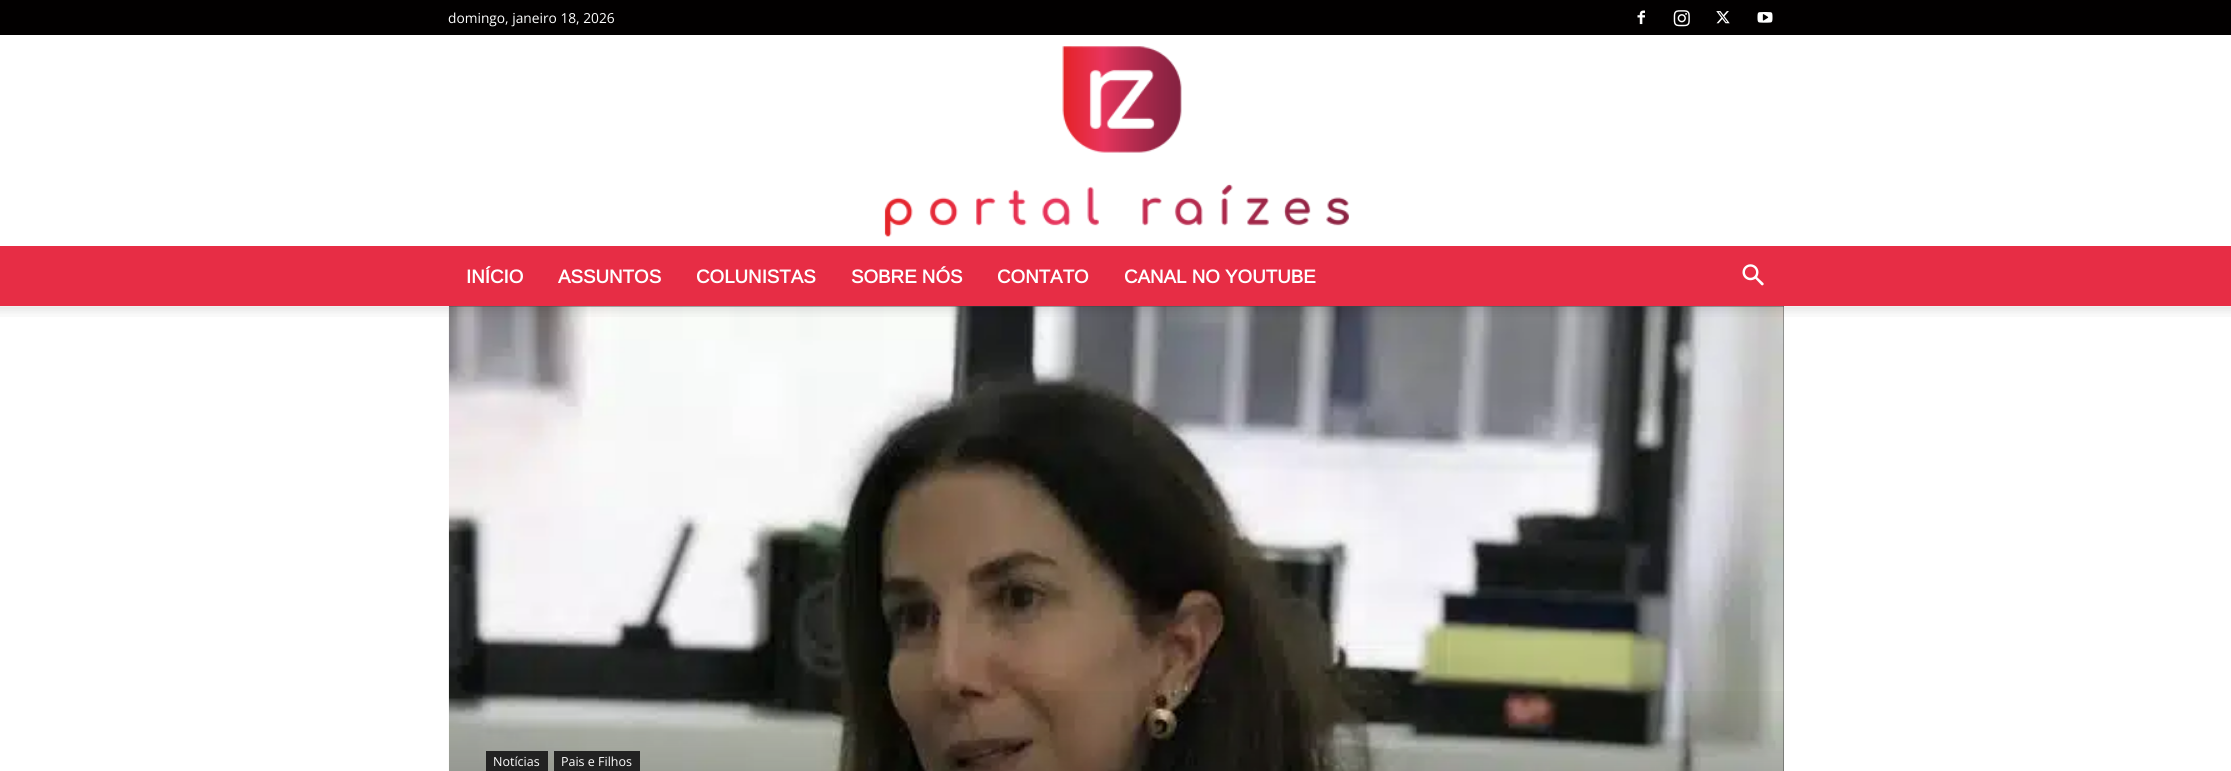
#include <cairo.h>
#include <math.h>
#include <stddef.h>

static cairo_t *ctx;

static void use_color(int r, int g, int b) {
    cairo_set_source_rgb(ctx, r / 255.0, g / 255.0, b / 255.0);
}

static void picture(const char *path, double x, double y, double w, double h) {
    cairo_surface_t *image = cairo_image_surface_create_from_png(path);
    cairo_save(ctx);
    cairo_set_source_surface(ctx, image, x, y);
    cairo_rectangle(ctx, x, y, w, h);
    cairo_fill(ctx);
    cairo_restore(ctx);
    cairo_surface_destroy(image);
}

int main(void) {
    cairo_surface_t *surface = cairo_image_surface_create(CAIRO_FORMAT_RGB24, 2231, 771);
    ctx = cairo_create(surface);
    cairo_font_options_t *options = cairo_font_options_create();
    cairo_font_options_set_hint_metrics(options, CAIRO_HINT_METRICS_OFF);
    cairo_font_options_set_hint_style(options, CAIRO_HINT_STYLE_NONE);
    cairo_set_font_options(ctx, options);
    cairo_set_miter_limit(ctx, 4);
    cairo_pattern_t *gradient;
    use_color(255, 255, 255);
    cairo_paint(ctx);
    use_color(2, 0, 0);
    cairo_rectangle(ctx, 0, 0, 2231, 35);
    cairo_fill(ctx);
    cairo_select_font_face(ctx, "Open Sans", CAIRO_FONT_SLANT_NORMAL, CAIRO_FONT_WEIGHT_NORMAL);
    cairo_set_font_size(ctx, 13.75);
    use_color(255, 255, 255);
    cairo_move_to(ctx, 448, 23);
    cairo_show_text(ctx, "domingo, janeiro 18, 2026");
    picture("img1.png", 1637, 10, 8, 15);
    picture("img2.png", 1673, 10, 17, 17);
    picture("img3.png", 1716, 11, 14, 13);
    picture("img4.png", 1757, 12, 16, 11);
    picture("img5.png", 884, 46, 465, 191);
    use_color(231, 45, 69);
    cairo_rectangle(ctx, 0, 246, 2231, 60);
    cairo_fill(ctx);
    cairo_select_font_face(ctx, "Arimo", CAIRO_FONT_SLANT_NORMAL, CAIRO_FONT_WEIGHT_BOLD);
    cairo_set_font_size(ctx, 18.75);
    use_color(255, 255, 255);
    cairo_move_to(ctx, 466, 283);
    cairo_show_text(ctx, "INÍCIO");
    cairo_move_to(ctx, 558, 283);
    cairo_show_text(ctx, "ASSUNTOS");
    cairo_move_to(ctx, 696, 283);
    cairo_show_text(ctx, "COLUNISTAS");
    cairo_move_to(ctx, 851, 283);
    cairo_show_text(ctx, "SOBRE NÓS");
    cairo_move_to(ctx, 997, 283);
    cairo_show_text(ctx, "CONTATO");
    cairo_move_to(ctx, 1124, 283);
    cairo_show_text(ctx, "CANAL NO YOUTUBE");
    picture("img6.png", 1742, 264, 22, 22);
    use_color(68, 68, 68);
    cairo_rectangle(ctx, 449, 306, 1335, 465);
    cairo_fill(ctx);
    picture("img8.png", 448, 306, 1336, 465);
    picture("img7.png", 0, 306, 2231, 11);
    gradient = cairo_pattern_create_linear(1116, 681, 1116, 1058);
    cairo_pattern_add_color_stop_rgba(gradient, 0, 0, 0, 0, 0);
    cairo_pattern_add_color_stop_rgba(gradient, 1, 0, 0, 0, 0.8);
    cairo_set_source(ctx, gradient);
    cairo_pattern_destroy(gradient);
    cairo_rectangle(ctx, 449, 691, 1335, 80);
    cairo_fill(ctx);
    use_color(34, 34, 34);
    cairo_rectangle(ctx, 486, 751, 62, 20);
    cairo_fill(ctx);
    cairo_select_font_face(ctx, "Open Sans", CAIRO_FONT_SLANT_NORMAL, CAIRO_FONT_WEIGHT_NORMAL);
    cairo_set_font_size(ctx, 12.5);
    use_color(255, 255, 255);
    cairo_move_to(ctx, 493, 766);
    cairo_show_text(ctx, "Notícias");
    use_color(34, 34, 34);
    cairo_rectangle(ctx, 554, 751, 86, 20);
    cairo_fill(ctx);
    use_color(255, 255, 255);
    cairo_move_to(ctx, 561, 766);
    cairo_show_text(ctx, "Pais e Filhos");
    cairo_surface_write_to_png(surface, "result.png");
    cairo_font_options_destroy(options);
    cairo_destroy(ctx);
    cairo_surface_destroy(surface);
    return 0;
}
